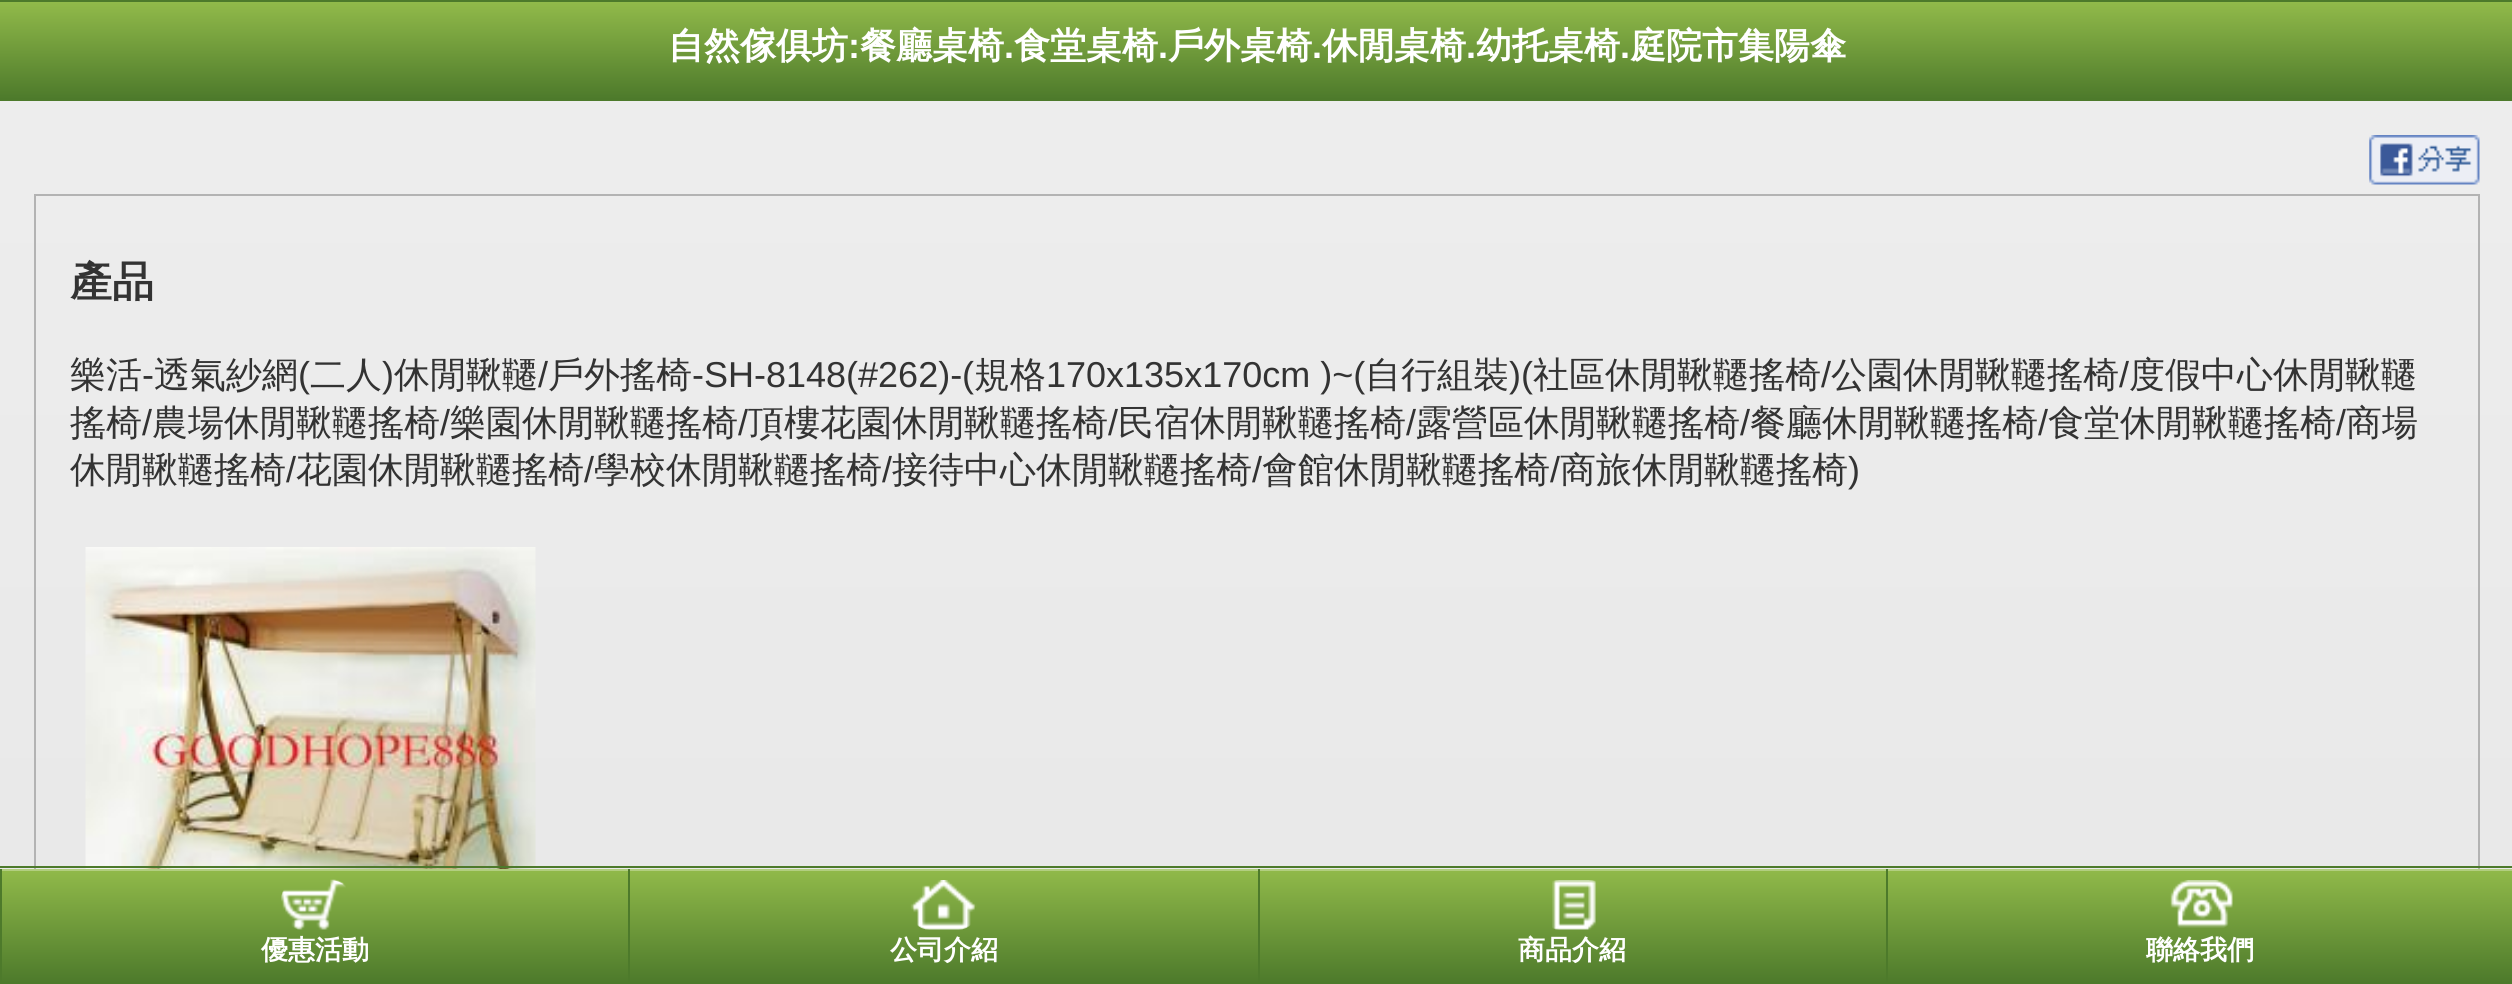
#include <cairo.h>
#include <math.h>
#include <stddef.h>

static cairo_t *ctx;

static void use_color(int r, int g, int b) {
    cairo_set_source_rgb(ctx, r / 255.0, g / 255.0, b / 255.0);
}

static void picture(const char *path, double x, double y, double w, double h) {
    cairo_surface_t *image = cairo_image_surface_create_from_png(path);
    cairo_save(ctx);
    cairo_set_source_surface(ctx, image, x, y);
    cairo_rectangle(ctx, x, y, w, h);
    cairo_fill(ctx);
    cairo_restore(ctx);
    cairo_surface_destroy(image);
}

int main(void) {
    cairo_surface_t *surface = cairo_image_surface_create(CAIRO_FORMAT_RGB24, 2512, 984);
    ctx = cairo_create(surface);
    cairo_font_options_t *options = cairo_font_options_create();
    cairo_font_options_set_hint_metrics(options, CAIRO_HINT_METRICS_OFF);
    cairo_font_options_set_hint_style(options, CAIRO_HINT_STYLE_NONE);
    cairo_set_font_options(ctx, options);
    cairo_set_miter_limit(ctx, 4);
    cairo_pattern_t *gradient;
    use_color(255, 255, 255);
    cairo_paint(ctx);
    gradient = cairo_pattern_create_linear(0, 0, 0, 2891);
    cairo_pattern_add_color_stop_rgba(gradient, 0, 0.933, 0.933, 0.933, 1);
    cairo_pattern_add_color_stop_rgba(gradient, 1, 0.867, 0.867, 0.867, 1);
    cairo_set_source(ctx, gradient);
    cairo_pattern_destroy(gradient);
    cairo_rectangle(ctx, 0, 101, 2512, 768);
    cairo_fill(ctx);
    gradient = cairo_pattern_create_linear(0, 2.2, 0, 99);
    cairo_pattern_add_color_stop_rgba(gradient, 0, 0.569, 0.729, 0.29, 1);
    cairo_pattern_add_color_stop_rgba(gradient, 1, 0.302, 0.478, 0.169, 1);
    cairo_set_source(ctx, gradient);
    cairo_pattern_destroy(gradient);
    cairo_rectangle(ctx, 0, 2, 2512, 97);
    cairo_fill(ctx);
    use_color(77, 122, 43);
    cairo_rectangle(ctx, 0, 0, 2512, 2);
    cairo_fill(ctx);
    cairo_rectangle(ctx, 0, 99, 2512, 2);
    cairo_fill(ctx);
    cairo_select_font_face(ctx, "WenQuanYi Zen Hei", CAIRO_FONT_SLANT_NORMAL, CAIRO_FONT_WEIGHT_BOLD);
    cairo_set_font_size(ctx, 36);
    use_color(255, 255, 255);
    cairo_move_to(ctx, 668, 58);
    cairo_show_text(ctx, "自然傢俱坊");
    cairo_select_font_face(ctx, "Liberation Sans", CAIRO_FONT_SLANT_NORMAL, CAIRO_FONT_WEIGHT_BOLD);
    cairo_move_to(ctx, 848, 58);
    cairo_show_text(ctx, ":");
    cairo_select_font_face(ctx, "WenQuanYi Zen Hei", CAIRO_FONT_SLANT_NORMAL, CAIRO_FONT_WEIGHT_BOLD);
    cairo_move_to(ctx, 860, 58);
    cairo_show_text(ctx, "餐廳桌椅");
    cairo_select_font_face(ctx, "Liberation Sans", CAIRO_FONT_SLANT_NORMAL, CAIRO_FONT_WEIGHT_BOLD);
    cairo_move_to(ctx, 1004, 58);
    cairo_show_text(ctx, ".");
    cairo_select_font_face(ctx, "WenQuanYi Zen Hei", CAIRO_FONT_SLANT_NORMAL, CAIRO_FONT_WEIGHT_BOLD);
    cairo_move_to(ctx, 1014, 58);
    cairo_show_text(ctx, "食堂桌椅");
    cairo_select_font_face(ctx, "Liberation Sans", CAIRO_FONT_SLANT_NORMAL, CAIRO_FONT_WEIGHT_BOLD);
    cairo_move_to(ctx, 1158, 58);
    cairo_show_text(ctx, ".");
    cairo_select_font_face(ctx, "WenQuanYi Zen Hei", CAIRO_FONT_SLANT_NORMAL, CAIRO_FONT_WEIGHT_BOLD);
    cairo_move_to(ctx, 1168, 58);
    cairo_show_text(ctx, "戶外桌椅");
    cairo_select_font_face(ctx, "Liberation Sans", CAIRO_FONT_SLANT_NORMAL, CAIRO_FONT_WEIGHT_BOLD);
    cairo_move_to(ctx, 1312, 58);
    cairo_show_text(ctx, ".");
    cairo_select_font_face(ctx, "WenQuanYi Zen Hei", CAIRO_FONT_SLANT_NORMAL, CAIRO_FONT_WEIGHT_BOLD);
    cairo_move_to(ctx, 1322, 58);
    cairo_show_text(ctx, "休閒桌椅");
    cairo_select_font_face(ctx, "Liberation Sans", CAIRO_FONT_SLANT_NORMAL, CAIRO_FONT_WEIGHT_BOLD);
    cairo_move_to(ctx, 1466, 58);
    cairo_show_text(ctx, ".");
    cairo_select_font_face(ctx, "WenQuanYi Zen Hei", CAIRO_FONT_SLANT_NORMAL, CAIRO_FONT_WEIGHT_BOLD);
    cairo_move_to(ctx, 1476, 58);
    cairo_show_text(ctx, "幼托桌椅");
    cairo_select_font_face(ctx, "Liberation Sans", CAIRO_FONT_SLANT_NORMAL, CAIRO_FONT_WEIGHT_BOLD);
    cairo_move_to(ctx, 1620, 58);
    cairo_show_text(ctx, ".");
    cairo_select_font_face(ctx, "WenQuanYi Zen Hei", CAIRO_FONT_SLANT_NORMAL, CAIRO_FONT_WEIGHT_BOLD);
    cairo_move_to(ctx, 1630, 58);
    cairo_show_text(ctx, "庭院市集陽傘");
    picture("img1.png", 2369, 135, 111, 50);
    cairo_rectangle(ctx, 35, 195, 2444, 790);
    use_color(179, 179, 179);
    cairo_stroke(ctx);
    cairo_set_font_size(ctx, 42);
    use_color(51, 51, 51);
    cairo_move_to(ctx, 70, 296);
    cairo_show_text(ctx, "產品");
    cairo_select_font_face(ctx, "WenQuanYi Zen Hei Medium", CAIRO_FONT_SLANT_NORMAL, CAIRO_FONT_WEIGHT_NORMAL);
    cairo_set_font_size(ctx, 36);
    cairo_move_to(ctx, 70, 387);
    cairo_show_text(ctx, "樂活");
    cairo_select_font_face(ctx, "Liberation Sans", CAIRO_FONT_SLANT_NORMAL, CAIRO_FONT_WEIGHT_NORMAL);
    cairo_move_to(ctx, 142, 387);
    cairo_show_text(ctx, "-");
    cairo_select_font_face(ctx, "WenQuanYi Zen Hei Medium", CAIRO_FONT_SLANT_NORMAL, CAIRO_FONT_WEIGHT_NORMAL);
    cairo_move_to(ctx, 154, 387);
    cairo_show_text(ctx, "透氣紗網");
    cairo_select_font_face(ctx, "Liberation Sans", CAIRO_FONT_SLANT_NORMAL, CAIRO_FONT_WEIGHT_NORMAL);
    cairo_move_to(ctx, 298, 387);
    cairo_show_text(ctx, "(");
    cairo_select_font_face(ctx, "WenQuanYi Zen Hei Medium", CAIRO_FONT_SLANT_NORMAL, CAIRO_FONT_WEIGHT_NORMAL);
    cairo_move_to(ctx, 310, 387);
    cairo_show_text(ctx, "二人");
    cairo_select_font_face(ctx, "Liberation Sans", CAIRO_FONT_SLANT_NORMAL, CAIRO_FONT_WEIGHT_NORMAL);
    cairo_move_to(ctx, 382, 387);
    cairo_show_text(ctx, ")");
    cairo_select_font_face(ctx, "WenQuanYi Zen Hei Medium", CAIRO_FONT_SLANT_NORMAL, CAIRO_FONT_WEIGHT_NORMAL);
    cairo_move_to(ctx, 394, 387);
    cairo_show_text(ctx, "休閒鞦韆");
    cairo_select_font_face(ctx, "Liberation Sans", CAIRO_FONT_SLANT_NORMAL, CAIRO_FONT_WEIGHT_NORMAL);
    cairo_move_to(ctx, 538, 387);
    cairo_show_text(ctx, "/");
    cairo_select_font_face(ctx, "WenQuanYi Zen Hei Medium", CAIRO_FONT_SLANT_NORMAL, CAIRO_FONT_WEIGHT_NORMAL);
    cairo_move_to(ctx, 548, 387);
    cairo_show_text(ctx, "戶外搖椅");
    cairo_select_font_face(ctx, "Liberation Sans", CAIRO_FONT_SLANT_NORMAL, CAIRO_FONT_WEIGHT_NORMAL);
    cairo_move_to(ctx, 692, 387);
    cairo_show_text(ctx, "-SH-8148(#262)-(");
    cairo_select_font_face(ctx, "WenQuanYi Zen Hei Medium", CAIRO_FONT_SLANT_NORMAL, CAIRO_FONT_WEIGHT_NORMAL);
    cairo_move_to(ctx, 974, 387);
    cairo_show_text(ctx, "規格");
    cairo_select_font_face(ctx, "Liberation Sans", CAIRO_FONT_SLANT_NORMAL, CAIRO_FONT_WEIGHT_NORMAL);
    cairo_move_to(ctx, 1046, 387);
    cairo_show_text(ctx, "170x135x170cm )~(");
    cairo_select_font_face(ctx, "WenQuanYi Zen Hei Medium", CAIRO_FONT_SLANT_NORMAL, CAIRO_FONT_WEIGHT_NORMAL);
    cairo_move_to(ctx, 1365, 387);
    cairo_show_text(ctx, "自行組裝");
    cairo_select_font_face(ctx, "Liberation Sans", CAIRO_FONT_SLANT_NORMAL, CAIRO_FONT_WEIGHT_NORMAL);
    cairo_move_to(ctx, 1509, 387);
    cairo_show_text(ctx, ")(");
    cairo_select_font_face(ctx, "WenQuanYi Zen Hei Medium", CAIRO_FONT_SLANT_NORMAL, CAIRO_FONT_WEIGHT_NORMAL);
    cairo_move_to(ctx, 1533, 387);
    cairo_show_text(ctx, "社區休閒鞦韆搖椅");
    cairo_select_font_face(ctx, "Liberation Sans", CAIRO_FONT_SLANT_NORMAL, CAIRO_FONT_WEIGHT_NORMAL);
    cairo_move_to(ctx, 1821, 387);
    cairo_show_text(ctx, "/");
    cairo_select_font_face(ctx, "WenQuanYi Zen Hei Medium", CAIRO_FONT_SLANT_NORMAL, CAIRO_FONT_WEIGHT_NORMAL);
    cairo_move_to(ctx, 1831, 387);
    cairo_show_text(ctx, "公園休閒鞦韆搖椅");
    cairo_select_font_face(ctx, "Liberation Sans", CAIRO_FONT_SLANT_NORMAL, CAIRO_FONT_WEIGHT_NORMAL);
    cairo_move_to(ctx, 2119, 387);
    cairo_show_text(ctx, "/");
    cairo_select_font_face(ctx, "WenQuanYi Zen Hei Medium", CAIRO_FONT_SLANT_NORMAL, CAIRO_FONT_WEIGHT_NORMAL);
    cairo_move_to(ctx, 2129, 387);
    cairo_show_text(ctx, "度假中心休閒鞦韆");
    cairo_move_to(ctx, 70, 435);
    cairo_show_text(ctx, "搖椅");
    cairo_select_font_face(ctx, "Liberation Sans", CAIRO_FONT_SLANT_NORMAL, CAIRO_FONT_WEIGHT_NORMAL);
    cairo_move_to(ctx, 142, 435);
    cairo_show_text(ctx, "/");
    cairo_select_font_face(ctx, "WenQuanYi Zen Hei Medium", CAIRO_FONT_SLANT_NORMAL, CAIRO_FONT_WEIGHT_NORMAL);
    cairo_move_to(ctx, 152, 435);
    cairo_show_text(ctx, "農場休閒鞦韆搖椅");
    cairo_select_font_face(ctx, "Liberation Sans", CAIRO_FONT_SLANT_NORMAL, CAIRO_FONT_WEIGHT_NORMAL);
    cairo_move_to(ctx, 440, 435);
    cairo_show_text(ctx, "/");
    cairo_select_font_face(ctx, "WenQuanYi Zen Hei Medium", CAIRO_FONT_SLANT_NORMAL, CAIRO_FONT_WEIGHT_NORMAL);
    cairo_move_to(ctx, 450, 435);
    cairo_show_text(ctx, "樂園休閒鞦韆搖椅");
    cairo_select_font_face(ctx, "Liberation Sans", CAIRO_FONT_SLANT_NORMAL, CAIRO_FONT_WEIGHT_NORMAL);
    cairo_move_to(ctx, 738, 435);
    cairo_show_text(ctx, "/");
    cairo_select_font_face(ctx, "WenQuanYi Zen Hei Medium", CAIRO_FONT_SLANT_NORMAL, CAIRO_FONT_WEIGHT_NORMAL);
    cairo_move_to(ctx, 748, 435);
    cairo_show_text(ctx, "頂樓花園休閒鞦韆搖椅");
    cairo_select_font_face(ctx, "Liberation Sans", CAIRO_FONT_SLANT_NORMAL, CAIRO_FONT_WEIGHT_NORMAL);
    cairo_move_to(ctx, 1108, 435);
    cairo_show_text(ctx, "/");
    cairo_select_font_face(ctx, "WenQuanYi Zen Hei Medium", CAIRO_FONT_SLANT_NORMAL, CAIRO_FONT_WEIGHT_NORMAL);
    cairo_move_to(ctx, 1118, 435);
    cairo_show_text(ctx, "民宿休閒鞦韆搖椅");
    cairo_select_font_face(ctx, "Liberation Sans", CAIRO_FONT_SLANT_NORMAL, CAIRO_FONT_WEIGHT_NORMAL);
    cairo_move_to(ctx, 1406, 435);
    cairo_show_text(ctx, "/");
    cairo_select_font_face(ctx, "WenQuanYi Zen Hei Medium", CAIRO_FONT_SLANT_NORMAL, CAIRO_FONT_WEIGHT_NORMAL);
    cairo_move_to(ctx, 1416, 435);
    cairo_show_text(ctx, "露營區休閒鞦韆搖椅");
    cairo_select_font_face(ctx, "Liberation Sans", CAIRO_FONT_SLANT_NORMAL, CAIRO_FONT_WEIGHT_NORMAL);
    cairo_move_to(ctx, 1740, 435);
    cairo_show_text(ctx, "/");
    cairo_select_font_face(ctx, "WenQuanYi Zen Hei Medium", CAIRO_FONT_SLANT_NORMAL, CAIRO_FONT_WEIGHT_NORMAL);
    cairo_move_to(ctx, 1750, 435);
    cairo_show_text(ctx, "餐廳休閒鞦韆搖椅");
    cairo_select_font_face(ctx, "Liberation Sans", CAIRO_FONT_SLANT_NORMAL, CAIRO_FONT_WEIGHT_NORMAL);
    cairo_move_to(ctx, 2038, 435);
    cairo_show_text(ctx, "/");
    cairo_select_font_face(ctx, "WenQuanYi Zen Hei Medium", CAIRO_FONT_SLANT_NORMAL, CAIRO_FONT_WEIGHT_NORMAL);
    cairo_move_to(ctx, 2048, 435);
    cairo_show_text(ctx, "食堂休閒鞦韆搖椅");
    cairo_select_font_face(ctx, "Liberation Sans", CAIRO_FONT_SLANT_NORMAL, CAIRO_FONT_WEIGHT_NORMAL);
    cairo_move_to(ctx, 2336, 435);
    cairo_show_text(ctx, "/");
    cairo_select_font_face(ctx, "WenQuanYi Zen Hei Medium", CAIRO_FONT_SLANT_NORMAL, CAIRO_FONT_WEIGHT_NORMAL);
    cairo_move_to(ctx, 2346, 435);
    cairo_show_text(ctx, "商場");
    cairo_move_to(ctx, 70, 482);
    cairo_show_text(ctx, "休閒鞦韆搖椅");
    cairo_select_font_face(ctx, "Liberation Sans", CAIRO_FONT_SLANT_NORMAL, CAIRO_FONT_WEIGHT_NORMAL);
    cairo_move_to(ctx, 286, 482);
    cairo_show_text(ctx, "/");
    cairo_select_font_face(ctx, "WenQuanYi Zen Hei Medium", CAIRO_FONT_SLANT_NORMAL, CAIRO_FONT_WEIGHT_NORMAL);
    cairo_move_to(ctx, 296, 482);
    cairo_show_text(ctx, "花園休閒鞦韆搖椅");
    cairo_select_font_face(ctx, "Liberation Sans", CAIRO_FONT_SLANT_NORMAL, CAIRO_FONT_WEIGHT_NORMAL);
    cairo_move_to(ctx, 584, 482);
    cairo_show_text(ctx, "/");
    cairo_select_font_face(ctx, "WenQuanYi Zen Hei Medium", CAIRO_FONT_SLANT_NORMAL, CAIRO_FONT_WEIGHT_NORMAL);
    cairo_move_to(ctx, 594, 482);
    cairo_show_text(ctx, "學校休閒鞦韆搖椅");
    cairo_select_font_face(ctx, "Liberation Sans", CAIRO_FONT_SLANT_NORMAL, CAIRO_FONT_WEIGHT_NORMAL);
    cairo_move_to(ctx, 882, 482);
    cairo_show_text(ctx, "/");
    cairo_select_font_face(ctx, "WenQuanYi Zen Hei Medium", CAIRO_FONT_SLANT_NORMAL, CAIRO_FONT_WEIGHT_NORMAL);
    cairo_move_to(ctx, 892, 482);
    cairo_show_text(ctx, "接待中心休閒鞦韆搖椅");
    cairo_select_font_face(ctx, "Liberation Sans", CAIRO_FONT_SLANT_NORMAL, CAIRO_FONT_WEIGHT_NORMAL);
    cairo_move_to(ctx, 1252, 482);
    cairo_show_text(ctx, "/");
    cairo_select_font_face(ctx, "WenQuanYi Zen Hei Medium", CAIRO_FONT_SLANT_NORMAL, CAIRO_FONT_WEIGHT_NORMAL);
    cairo_move_to(ctx, 1262, 482);
    cairo_show_text(ctx, "會館休閒鞦韆搖椅");
    cairo_select_font_face(ctx, "Liberation Sans", CAIRO_FONT_SLANT_NORMAL, CAIRO_FONT_WEIGHT_NORMAL);
    cairo_move_to(ctx, 1550, 482);
    cairo_show_text(ctx, "/");
    cairo_select_font_face(ctx, "WenQuanYi Zen Hei Medium", CAIRO_FONT_SLANT_NORMAL, CAIRO_FONT_WEIGHT_NORMAL);
    cairo_move_to(ctx, 1560, 482);
    cairo_show_text(ctx, "商旅休閒鞦韆搖椅");
    cairo_select_font_face(ctx, "Liberation Sans", CAIRO_FONT_SLANT_NORMAL, CAIRO_FONT_WEIGHT_NORMAL);
    cairo_move_to(ctx, 1848, 482);
    cairo_show_text(ctx, ")");
    picture("img2.png", 85, 547, 451, 322);
    use_color(77, 122, 43);
    cairo_rectangle(ctx, 0, 866, 2512, 2);
    cairo_fill(ctx);
    cairo_rectangle(ctx, 0, 983, 2512, 1);
    cairo_fill(ctx);
    gradient = cairo_pattern_create_linear(2.2, 869, 2.2, 983);
    cairo_pattern_add_color_stop_rgba(gradient, 0, 0.569, 0.729, 0.29, 1);
    cairo_pattern_add_color_stop_rgba(gradient, 1, 0.302, 0.478, 0.169, 1);
    cairo_set_source(ctx, gradient);
    cairo_pattern_destroy(gradient);
    cairo_rectangle(ctx, 2, 871, 626, 112);
    cairo_fill(ctx);
    use_color(77, 122, 43);
    cairo_rectangle(ctx, 0, 869, 2, 114);
    cairo_fill(ctx);
    use_color(178, 206, 128);
    cairo_rectangle(ctx, 2, 869, 626, 2);
    cairo_fill(ctx);
    picture("img3.png", 281, 879, 65, 51);
    cairo_select_font_face(ctx, "WenQuanYi Zen Hei", CAIRO_FONT_SLANT_NORMAL, CAIRO_FONT_WEIGHT_BOLD);
    cairo_set_font_size(ctx, 27);
    use_color(255, 255, 255);
    cairo_move_to(ctx, 261, 959);
    cairo_show_text(ctx, "優惠活動");
    gradient = cairo_pattern_create_linear(630, 869, 630, 983);
    cairo_pattern_add_color_stop_rgba(gradient, 0, 0.569, 0.729, 0.29, 1);
    cairo_pattern_add_color_stop_rgba(gradient, 1, 0.302, 0.478, 0.169, 1);
    cairo_set_source(ctx, gradient);
    cairo_pattern_destroy(gradient);
    cairo_rectangle(ctx, 630, 871, 628, 112);
    cairo_fill(ctx);
    use_color(77, 122, 43);
    cairo_rectangle(ctx, 628, 869, 2, 114);
    cairo_fill(ctx);
    use_color(178, 206, 128);
    cairo_rectangle(ctx, 630, 869, 628, 2);
    cairo_fill(ctx);
    picture("img4.png", 910, 880, 67, 50);
    use_color(255, 255, 255);
    cairo_move_to(ctx, 890, 959);
    cairo_show_text(ctx, "公司介紹");
    gradient = cairo_pattern_create_linear(1260, 869, 1260, 983);
    cairo_pattern_add_color_stop_rgba(gradient, 0, 0.569, 0.729, 0.29, 1);
    cairo_pattern_add_color_stop_rgba(gradient, 1, 0.302, 0.478, 0.169, 1);
    cairo_set_source(ctx, gradient);
    cairo_pattern_destroy(gradient);
    cairo_rectangle(ctx, 1260, 871, 626, 112);
    cairo_fill(ctx);
    use_color(77, 122, 43);
    cairo_rectangle(ctx, 1258, 869, 2, 114);
    cairo_fill(ctx);
    use_color(178, 206, 128);
    cairo_rectangle(ctx, 1260, 869, 626, 2);
    cairo_fill(ctx);
    picture("img5.png", 1552, 880, 44, 50);
    use_color(255, 255, 255);
    cairo_move_to(ctx, 1518, 959);
    cairo_show_text(ctx, "商品介紹");
    gradient = cairo_pattern_create_linear(1888, 869, 1888, 983);
    cairo_pattern_add_color_stop_rgba(gradient, 0, 0.569, 0.729, 0.29, 1);
    cairo_pattern_add_color_stop_rgba(gradient, 1, 0.302, 0.478, 0.169, 1);
    cairo_set_source(ctx, gradient);
    cairo_pattern_destroy(gradient);
    cairo_rectangle(ctx, 1888, 871, 624, 112);
    cairo_fill(ctx);
    use_color(77, 122, 43);
    cairo_rectangle(ctx, 1886, 869, 2, 114);
    cairo_fill(ctx);
    use_color(178, 206, 128);
    cairo_rectangle(ctx, 1888, 869, 624, 2);
    cairo_fill(ctx);
    picture("img6.png", 2170, 880, 63, 48);
    use_color(255, 255, 255);
    cairo_move_to(ctx, 2146, 959);
    cairo_show_text(ctx, "聯絡我們");
    cairo_surface_write_to_png(surface, "result.png");
    cairo_font_options_destroy(options);
    cairo_destroy(ctx);
    cairo_surface_destroy(surface);
    return 0;
}
